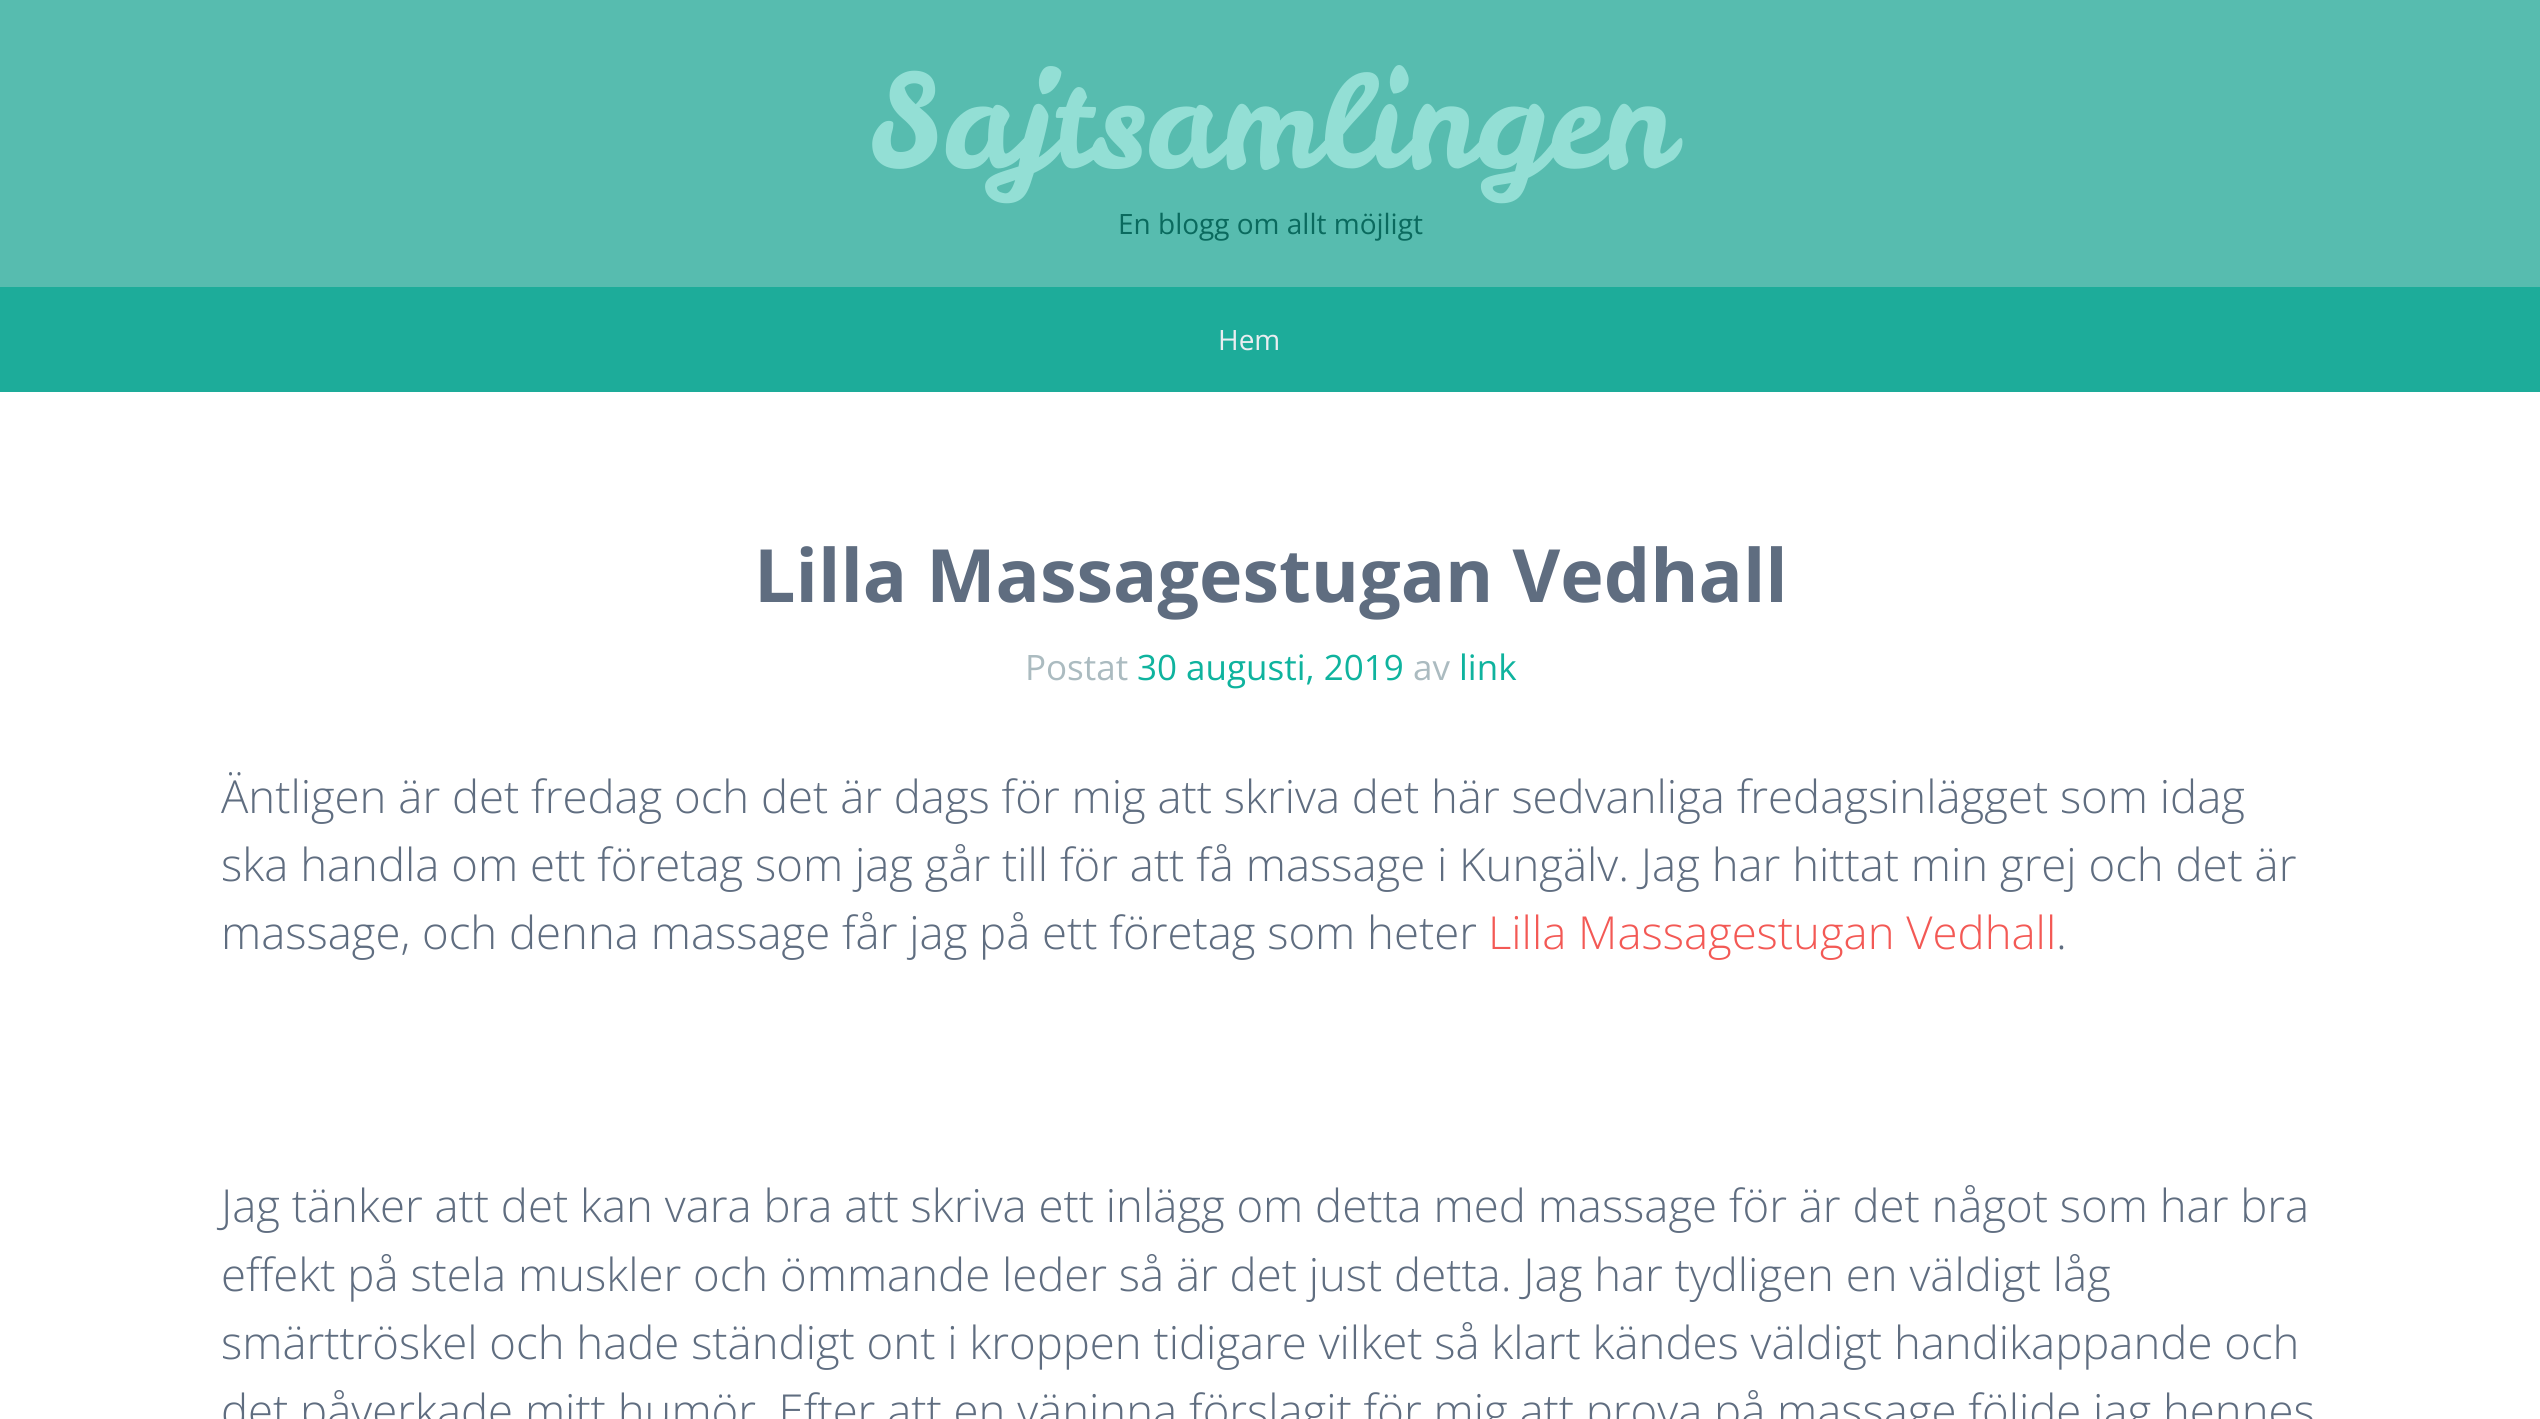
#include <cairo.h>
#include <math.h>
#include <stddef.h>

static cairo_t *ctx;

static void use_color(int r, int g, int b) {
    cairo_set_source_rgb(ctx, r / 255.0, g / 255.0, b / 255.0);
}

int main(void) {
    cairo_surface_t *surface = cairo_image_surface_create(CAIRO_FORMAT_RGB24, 2540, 1419);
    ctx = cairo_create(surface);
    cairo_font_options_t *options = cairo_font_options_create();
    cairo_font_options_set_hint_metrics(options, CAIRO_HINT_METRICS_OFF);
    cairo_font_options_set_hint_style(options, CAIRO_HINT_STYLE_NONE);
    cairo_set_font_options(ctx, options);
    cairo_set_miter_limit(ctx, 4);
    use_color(255, 255, 255);
    cairo_paint(ctx);
    use_color(87, 188, 175);
    cairo_rectangle(ctx, 0, 0, 2540, 287);
    cairo_fill(ctx);
    cairo_select_font_face(ctx, "Leckerli One", CAIRO_FONT_SLANT_NORMAL, CAIRO_FONT_WEIGHT_NORMAL);
    cairo_set_font_size(ctx, 128.75);
    use_color(147, 223, 213);
    cairo_move_to(ctx, 869, 168);
    cairo_show_text(ctx, "Sajtsamlingen");
    cairo_select_font_face(ctx, "Open Sans", CAIRO_FONT_SLANT_NORMAL, CAIRO_FONT_WEIGHT_NORMAL);
    cairo_set_font_size(ctx, 28);
    use_color(10, 106, 94);
    cairo_move_to(ctx, 1118, 234);
    cairo_show_text(ctx, "En blogg om allt möjligt");
    use_color(29, 172, 154);
    cairo_rectangle(ctx, 0, 287, 2540, 105);
    cairo_fill(ctx);
    use_color(234, 237, 241);
    cairo_move_to(ctx, 1218, 350);
    cairo_show_text(ctx, "Hem");
    cairo_select_font_face(ctx, "Open Sans", CAIRO_FONT_SLANT_NORMAL, CAIRO_FONT_WEIGHT_BOLD);
    cairo_set_font_size(ctx, 73.5);
    use_color(95, 109, 128);
    cairo_move_to(ctx, 754, 602);
    cairo_show_text(ctx, "Lilla Massagestugan Vedhall");
    cairo_select_font_face(ctx, "Open Sans", CAIRO_FONT_SLANT_NORMAL, CAIRO_FONT_WEIGHT_NORMAL);
    cairo_set_font_size(ctx, 35);
    use_color(171, 187, 192);
    cairo_move_to(ctx, 1025, 680);
    cairo_show_text(ctx, "Postat");
    use_color(15, 179, 158);
    cairo_move_to(ctx, 1137, 680);
    cairo_show_text(ctx, "30 augusti, 2019");
    use_color(171, 187, 192);
    cairo_move_to(ctx, 1413, 680);
    cairo_show_text(ctx, "av");
    use_color(15, 179, 158);
    cairo_move_to(ctx, 1459, 680);
    cairo_show_text(ctx, "link");
    cairo_select_font_face(ctx, "Open Sans Light", CAIRO_FONT_SLANT_NORMAL, CAIRO_FONT_WEIGHT_NORMAL);
    cairo_set_font_size(ctx, 45.5);
    use_color(95, 109, 128);
    cairo_move_to(ctx, 221, 813);
    cairo_show_text(ctx, "Äntligen är det fredag och det är dags för mig att skriva det här sedvanliga fredagsinlägget som idag");
    cairo_move_to(ctx, 221, 881);
    cairo_show_text(ctx, "ska handla om ett företag som jag går till för att få massage i Kungälv. Jag har hittat min grej och det är");
    cairo_move_to(ctx, 221, 949);
    cairo_show_text(ctx, "massage, och denna massage får jag på ett företag som heter");
    use_color(243, 89, 85);
    cairo_move_to(ctx, 1488, 949);
    cairo_show_text(ctx, "Lilla Massagestugan Vedhall");
    use_color(95, 109, 128);
    cairo_move_to(ctx, 2056, 949);
    cairo_show_text(ctx, ".");
    cairo_move_to(ctx, 221, 1222);
    cairo_show_text(ctx, "Jag tänker att det kan vara bra att skriva ett inlägg om detta med massage för är det något som har bra");
    cairo_move_to(ctx, 221, 1291);
    cairo_show_text(ctx, "effekt på stela muskler och ömmande leder så är det just detta. Jag har tydligen en väldigt låg");
    cairo_move_to(ctx, 221, 1359);
    cairo_show_text(ctx, "smärttröskel och hade ständigt ont i kroppen tidigare vilket så klart kändes väldigt handikappande och");
    cairo_move_to(ctx, 221, 1427);
    cairo_show_text(ctx, "det påverkade mitt humör. Efter att en väninna förslagit för mig att prova på massage följde jag hennes");
    cairo_surface_write_to_png(surface, "result.png");
    cairo_font_options_destroy(options);
    cairo_destroy(ctx);
    cairo_surface_destroy(surface);
    return 0;
}
